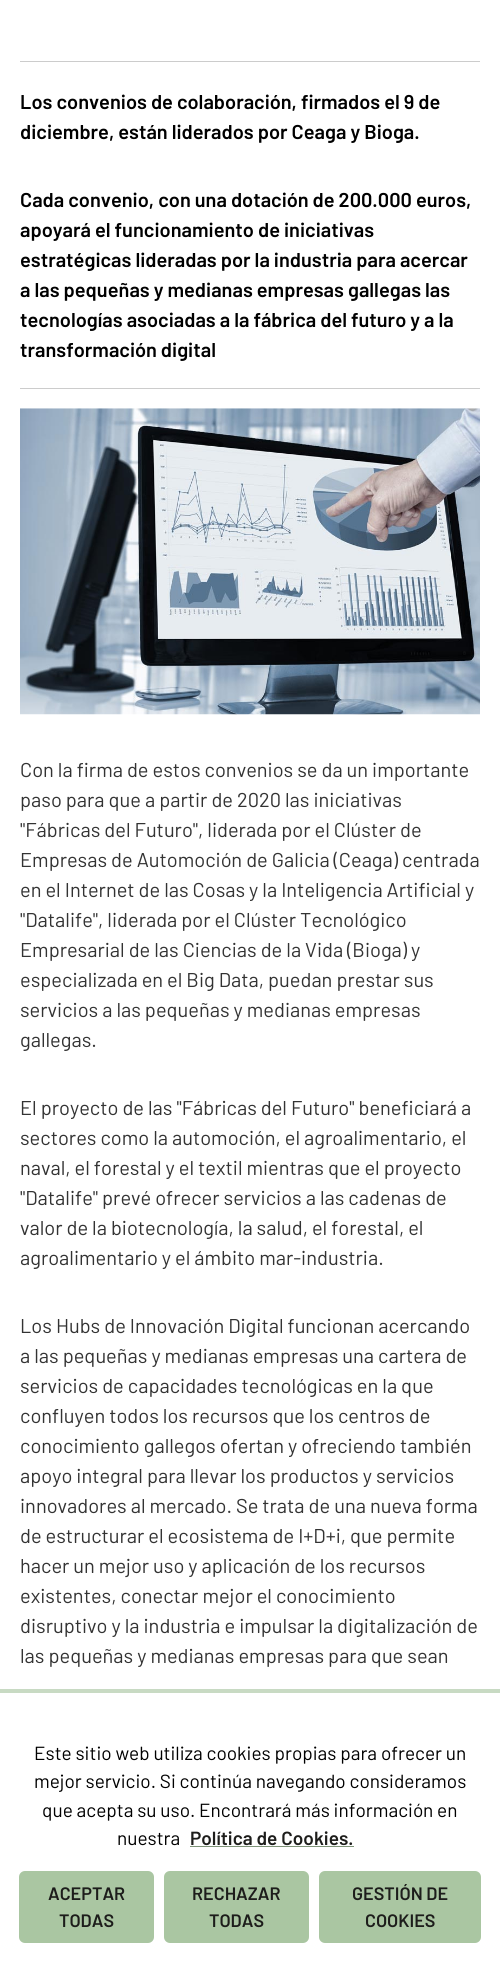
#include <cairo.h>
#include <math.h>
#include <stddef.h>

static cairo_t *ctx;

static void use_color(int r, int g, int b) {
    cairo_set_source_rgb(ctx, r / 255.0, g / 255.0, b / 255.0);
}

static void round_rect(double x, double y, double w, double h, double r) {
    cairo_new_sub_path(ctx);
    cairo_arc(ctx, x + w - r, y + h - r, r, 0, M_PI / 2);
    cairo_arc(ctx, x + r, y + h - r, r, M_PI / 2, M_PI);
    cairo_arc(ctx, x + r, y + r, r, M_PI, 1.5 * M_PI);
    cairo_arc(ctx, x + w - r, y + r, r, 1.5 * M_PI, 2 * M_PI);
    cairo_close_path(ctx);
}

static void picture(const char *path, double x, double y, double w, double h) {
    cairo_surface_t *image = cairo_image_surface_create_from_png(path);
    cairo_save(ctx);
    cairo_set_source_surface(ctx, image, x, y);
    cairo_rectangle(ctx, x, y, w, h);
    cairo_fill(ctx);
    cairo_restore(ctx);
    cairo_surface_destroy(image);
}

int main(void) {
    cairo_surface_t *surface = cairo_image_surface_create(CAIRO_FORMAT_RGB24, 500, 1971);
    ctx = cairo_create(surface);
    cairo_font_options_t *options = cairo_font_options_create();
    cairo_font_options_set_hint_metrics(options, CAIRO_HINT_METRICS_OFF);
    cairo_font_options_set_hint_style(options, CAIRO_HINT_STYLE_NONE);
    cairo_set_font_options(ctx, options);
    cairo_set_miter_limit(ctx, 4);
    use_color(255, 255, 255);
    cairo_paint(ctx);
    use_color(204, 204, 204);
    cairo_rectangle(ctx, 20, 61, 460, 1);
    cairo_fill(ctx);
    cairo_rectangle(ctx, 20, 388, 460, 1);
    cairo_fill(ctx);
    cairo_select_font_face(ctx, "Barlow SemiBold", CAIRO_FONT_SLANT_NORMAL, CAIRO_FONT_WEIGHT_NORMAL);
    cairo_set_font_size(ctx, 20);
    use_color(0, 0, 0);
    cairo_move_to(ctx, 20, 109);
    cairo_show_text(ctx, "Los convenios de colaboración, firmados el 9 de");
    cairo_move_to(ctx, 20, 139);
    cairo_show_text(ctx, "diciembre, están liderados por Ceaga y Bioga.");
    cairo_move_to(ctx, 20, 207);
    cairo_show_text(ctx, "Cada convenio, con una dotación de 200.000 euros,");
    cairo_move_to(ctx, 20, 237);
    cairo_show_text(ctx, "apoyará el funcionamiento de iniciativas");
    cairo_move_to(ctx, 20, 267);
    cairo_show_text(ctx, "estratégicas lideradas por la industria para acercar");
    cairo_move_to(ctx, 20, 297);
    cairo_show_text(ctx, "a las pequeñas y medianas empresas gallegas las");
    cairo_move_to(ctx, 20, 327);
    cairo_show_text(ctx, "tecnologías asociadas a la fábrica del futuro y a la");
    cairo_move_to(ctx, 20, 357);
    cairo_show_text(ctx, "transformación digital");
    picture("img1.png", 20, 408, 460, 307);
    cairo_select_font_face(ctx, "Barlow", CAIRO_FONT_SLANT_NORMAL, CAIRO_FONT_WEIGHT_NORMAL);
    use_color(51, 51, 51);
    cairo_move_to(ctx, 20, 777);
    cairo_show_text(ctx, "Con la firma de estos convenios se da un importante");
    cairo_move_to(ctx, 20, 807);
    cairo_show_text(ctx, "paso para que a partir de 2020 las iniciativas");
    cairo_move_to(ctx, 20, 837);
    cairo_show_text(ctx, "\"Fábricas del Futuro\", liderada por el Clúster de");
    cairo_move_to(ctx, 20, 867);
    cairo_show_text(ctx, "Empresas de Automoción de Galicia (Ceaga) centrada");
    cairo_move_to(ctx, 20, 897);
    cairo_show_text(ctx, "en el Internet de las Cosas y la Inteligencia Artificial y");
    cairo_move_to(ctx, 20, 927);
    cairo_show_text(ctx, "\"Datalife\", liderada por el Clúster Tecnológico");
    cairo_move_to(ctx, 20, 957);
    cairo_show_text(ctx, "Empresarial de las Ciencias de la Vida (Bioga) y");
    cairo_move_to(ctx, 20, 987);
    cairo_show_text(ctx, "especializada en el Big Data, puedan prestar sus");
    cairo_move_to(ctx, 20, 1017);
    cairo_show_text(ctx, "servicios a las pequeñas y medianas empresas");
    cairo_move_to(ctx, 20, 1047);
    cairo_show_text(ctx, "gallegas.");
    cairo_move_to(ctx, 20, 1115);
    cairo_show_text(ctx, "El proyecto de las \"Fábricas del Futuro\" beneficiará a");
    cairo_move_to(ctx, 20, 1145);
    cairo_show_text(ctx, "sectores como la automoción, el agroalimentario, el");
    cairo_move_to(ctx, 20, 1175);
    cairo_show_text(ctx, "naval, el forestal y el textil mientras que el proyecto");
    cairo_move_to(ctx, 20, 1205);
    cairo_show_text(ctx, "\"Datalife\" prevé ofrecer servicios a las cadenas de");
    cairo_move_to(ctx, 20, 1235);
    cairo_show_text(ctx, "valor de la biotecnología, la salud, el forestal, el");
    cairo_move_to(ctx, 20, 1265);
    cairo_show_text(ctx, "agroalimentario y el ámbito mar-industria.");
    cairo_move_to(ctx, 20, 1333);
    cairo_show_text(ctx, "Los Hubs de Innovación Digital funcionan acercando");
    cairo_move_to(ctx, 20, 1363);
    cairo_show_text(ctx, "a las pequeñas y medianas empresas una cartera de");
    cairo_move_to(ctx, 20, 1393);
    cairo_show_text(ctx, "servicios de capacidades tecnológicas en la que");
    cairo_move_to(ctx, 20, 1423);
    cairo_show_text(ctx, "confluyen todos los recursos que los centros de");
    cairo_move_to(ctx, 20, 1453);
    cairo_show_text(ctx, "conocimiento gallegos ofertan y ofreciendo también");
    cairo_move_to(ctx, 20, 1483);
    cairo_show_text(ctx, "apoyo integral para llevar los productos y servicios");
    cairo_move_to(ctx, 20, 1513);
    cairo_show_text(ctx, "innovadores al mercado. Se trata de una nueva forma");
    cairo_move_to(ctx, 20, 1543);
    cairo_show_text(ctx, "de estructurar el ecosistema de I+D+i, que permite");
    cairo_move_to(ctx, 20, 1573);
    cairo_show_text(ctx, "hacer un mejor uso y aplicación de los recursos");
    cairo_move_to(ctx, 20, 1603);
    cairo_show_text(ctx, "existentes, conectar mejor el conocimiento");
    cairo_move_to(ctx, 20, 1633);
    cairo_show_text(ctx, "disruptivo y la industria e impulsar la digitalización de");
    cairo_move_to(ctx, 20, 1663);
    cairo_show_text(ctx, "las pequeñas y medianas empresas para que sean");
    use_color(200, 218, 195);
    cairo_rectangle(ctx, 0, 1689, 500, 4);
    cairo_fill(ctx);
    cairo_set_font_size(ctx, 19);
    use_color(0, 0, 0);
    cairo_move_to(ctx, 34, 1760);
    cairo_show_text(ctx, "Este sitio web utiliza cookies propias para ofrecer un");
    cairo_move_to(ctx, 34, 1788);
    cairo_show_text(ctx, "mejor servicio. Si continúa navegando consideramos");
    cairo_move_to(ctx, 42, 1817);
    cairo_show_text(ctx, "que acepta su uso. Encontrará más información en");
    cairo_move_to(ctx, 117, 1845);
    cairo_show_text(ctx, "nuestra");
    cairo_select_font_face(ctx, "Barlow SemiBold", CAIRO_FONT_SLANT_NORMAL, CAIRO_FONT_WEIGHT_NORMAL);
    use_color(29, 29, 27);
    cairo_move_to(ctx, 190, 1845);
    cairo_show_text(ctx, "Política de Cookies.");
    use_color(126, 147, 120);
    cairo_rectangle(ctx, 190, 1846, 164, 1);
    cairo_fill(ctx);
    use_color(170, 198, 162);
    round_rect(19, 1871, 135, 72, 6);
    cairo_fill(ctx);
    cairo_set_font_size(ctx, 18);
    use_color(29, 29, 27);
    cairo_move_to(ctx, 48, 1900);
    cairo_show_text(ctx, "ACEPTAR");
    cairo_move_to(ctx, 59, 1927);
    cairo_show_text(ctx, "TODAS");
    use_color(170, 198, 162);
    round_rect(164, 1871, 145, 72, 6);
    cairo_fill(ctx);
    use_color(29, 29, 27);
    cairo_move_to(ctx, 192, 1900);
    cairo_show_text(ctx, "RECHAZAR");
    cairo_move_to(ctx, 209, 1927);
    cairo_show_text(ctx, "TODAS");
    use_color(170, 198, 162);
    round_rect(319, 1871, 162, 72, 6);
    cairo_fill(ctx);
    use_color(29, 29, 27);
    cairo_move_to(ctx, 352, 1900);
    cairo_show_text(ctx, "GESTIÓN DE");
    cairo_move_to(ctx, 365, 1927);
    cairo_show_text(ctx, "COOKIES");
    cairo_surface_write_to_png(surface, "result.png");
    cairo_font_options_destroy(options);
    cairo_destroy(ctx);
    cairo_surface_destroy(surface);
    return 0;
}
